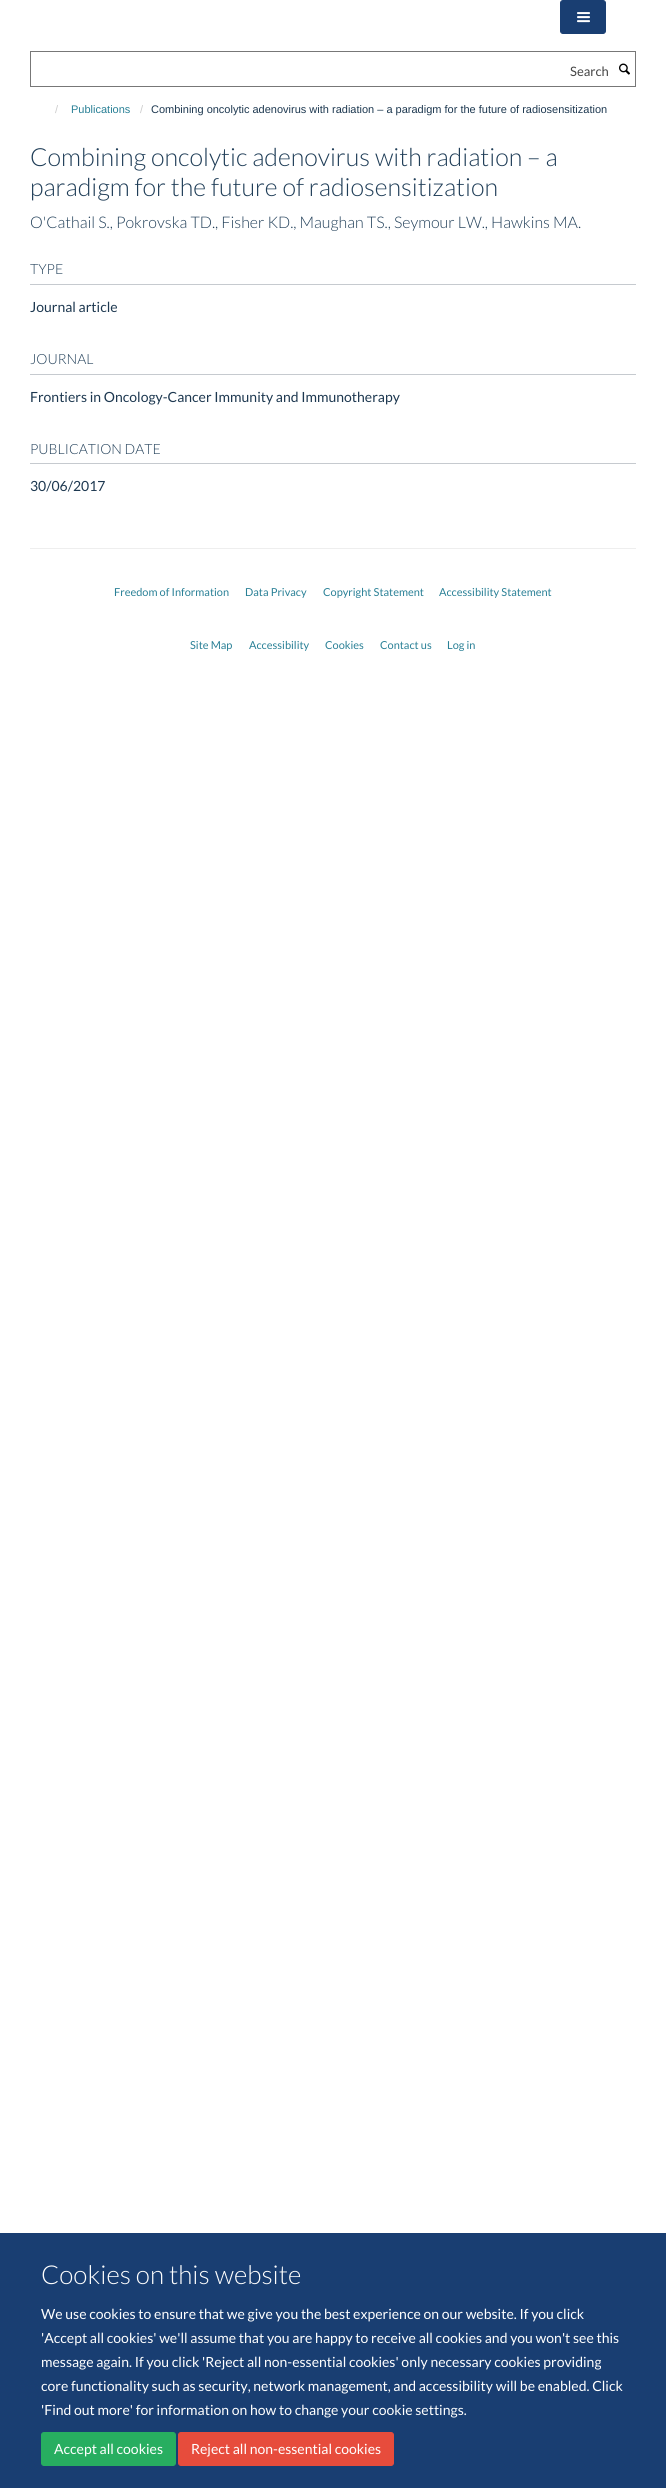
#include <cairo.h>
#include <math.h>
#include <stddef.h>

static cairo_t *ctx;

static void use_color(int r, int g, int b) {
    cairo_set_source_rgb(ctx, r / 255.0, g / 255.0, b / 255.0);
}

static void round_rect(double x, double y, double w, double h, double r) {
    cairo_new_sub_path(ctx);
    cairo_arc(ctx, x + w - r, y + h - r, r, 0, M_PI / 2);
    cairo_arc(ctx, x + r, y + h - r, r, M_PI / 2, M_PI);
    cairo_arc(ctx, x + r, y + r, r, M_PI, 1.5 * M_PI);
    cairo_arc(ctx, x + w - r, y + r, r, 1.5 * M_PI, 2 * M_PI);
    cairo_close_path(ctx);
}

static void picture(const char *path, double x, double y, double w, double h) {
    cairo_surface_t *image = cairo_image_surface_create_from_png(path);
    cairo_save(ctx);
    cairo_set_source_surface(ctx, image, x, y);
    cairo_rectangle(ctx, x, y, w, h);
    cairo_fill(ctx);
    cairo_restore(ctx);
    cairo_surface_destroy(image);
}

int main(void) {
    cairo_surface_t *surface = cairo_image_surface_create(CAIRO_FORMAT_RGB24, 666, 2488);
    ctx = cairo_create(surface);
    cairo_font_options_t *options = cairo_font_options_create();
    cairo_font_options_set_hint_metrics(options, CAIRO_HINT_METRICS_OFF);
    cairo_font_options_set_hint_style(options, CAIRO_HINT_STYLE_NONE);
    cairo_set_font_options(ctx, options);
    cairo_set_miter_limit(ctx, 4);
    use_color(255, 255, 255);
    cairo_paint(ctx);
    use_color(25, 62, 114);
    round_rect(560.5, 0.5, 45, 33, 2.5);
    cairo_fill_preserve(ctx);
    cairo_set_line_width(ctx, 1);
    cairo_stroke(ctx);
    picture("img1.png", 577, 12, 13, 11);
    cairo_rectangle(ctx, 30.5, 51.5, 605, 35);
    use_color(119, 119, 119);
    cairo_stroke(ctx);
    cairo_select_font_face(ctx, "Lato", CAIRO_FONT_SLANT_NORMAL, CAIRO_FONT_WEIGHT_NORMAL);
    cairo_set_font_size(ctx, 13);
    use_color(68, 68, 68);
    cairo_move_to(ctx, 570, 76);
    cairo_show_text(ctx, "Search");
    picture("img2.png", 619, 63, 11, 12);
    cairo_select_font_face(ctx, "Liberation Sans", CAIRO_FONT_SLANT_NORMAL, CAIRO_FONT_WEIGHT_NORMAL);
    cairo_set_font_size(ctx, 11);
    use_color(204, 204, 204);
    cairo_move_to(ctx, 55, 113);
    cairo_show_text(ctx, "/");
    use_color(41, 128, 150);
    cairo_move_to(ctx, 71, 113);
    cairo_show_text(ctx, "Publications");
    use_color(204, 204, 204);
    cairo_move_to(ctx, 140, 113);
    cairo_show_text(ctx, "/");
    use_color(29, 56, 80);
    cairo_move_to(ctx, 151, 113);
    cairo_show_text(ctx, "Combining oncolytic adenovirus with radiation – a paradigm for the future of radiosensitization");
    cairo_select_font_face(ctx, "Lato Light", CAIRO_FONT_SLANT_NORMAL, CAIRO_FONT_WEIGHT_NORMAL);
    cairo_set_font_size(ctx, 25);
    use_color(32, 62, 88);
    cairo_move_to(ctx, 30, 166);
    cairo_show_text(ctx, "Combining oncolytic adenovirus with radiation – a");
    cairo_move_to(ctx, 30, 196);
    cairo_show_text(ctx, "paradigm for the future of radiosensitization");
    cairo_set_font_size(ctx, 16);
    cairo_move_to(ctx, 30, 228);
    cairo_show_text(ctx, "O'Cathail S., Pokrovska TD., Fisher KD., Maughan TS., Seymour LW., Hawkins MA.");
    use_color(198, 202, 207);
    cairo_rectangle(ctx, 30, 284, 606, 1);
    cairo_fill(ctx);
    cairo_set_font_size(ctx, 14);
    use_color(32, 62, 88);
    cairo_move_to(ctx, 30, 274);
    cairo_show_text(ctx, "TYPE");
    cairo_select_font_face(ctx, "Lato", CAIRO_FONT_SLANT_NORMAL, CAIRO_FONT_WEIGHT_NORMAL);
    use_color(29, 56, 80);
    cairo_move_to(ctx, 30, 312);
    cairo_show_text(ctx, "Journal article");
    use_color(198, 202, 207);
    cairo_rectangle(ctx, 30, 374, 606, 1);
    cairo_fill(ctx);
    cairo_select_font_face(ctx, "Lato Light", CAIRO_FONT_SLANT_NORMAL, CAIRO_FONT_WEIGHT_NORMAL);
    use_color(32, 62, 88);
    cairo_move_to(ctx, 30, 364);
    cairo_show_text(ctx, "JOURNAL");
    cairo_select_font_face(ctx, "Lato", CAIRO_FONT_SLANT_NORMAL, CAIRO_FONT_WEIGHT_NORMAL);
    use_color(29, 56, 80);
    cairo_move_to(ctx, 30, 402);
    cairo_show_text(ctx, "Frontiers in Oncology-Cancer Immunity and Immunotherapy");
    use_color(198, 202, 207);
    cairo_rectangle(ctx, 30, 463, 606, 1);
    cairo_fill(ctx);
    cairo_select_font_face(ctx, "Lato Light", CAIRO_FONT_SLANT_NORMAL, CAIRO_FONT_WEIGHT_NORMAL);
    use_color(32, 62, 88);
    cairo_move_to(ctx, 30, 454);
    cairo_show_text(ctx, "PUBLICATION DATE");
    cairo_select_font_face(ctx, "Lato", CAIRO_FONT_SLANT_NORMAL, CAIRO_FONT_WEIGHT_NORMAL);
    use_color(29, 56, 80);
    cairo_move_to(ctx, 30, 491);
    cairo_show_text(ctx, "30/06/2017");
    use_color(238, 238, 238);
    cairo_rectangle(ctx, 30, 548, 606, 1);
    cairo_fill(ctx);
    cairo_set_font_size(ctx, 11);
    use_color(41, 128, 150);
    cairo_move_to(ctx, 114, 596);
    cairo_show_text(ctx, "Freedom of Information");
    cairo_move_to(ctx, 245, 596);
    cairo_show_text(ctx, "Data Privacy");
    cairo_move_to(ctx, 323, 596);
    cairo_show_text(ctx, "Copyright Statement");
    cairo_move_to(ctx, 439, 596);
    cairo_show_text(ctx, "Accessibility Statement");
    cairo_move_to(ctx, 190, 649);
    cairo_show_text(ctx, "Site Map");
    cairo_move_to(ctx, 249, 649);
    cairo_show_text(ctx, "Accessibility");
    cairo_move_to(ctx, 325, 649);
    cairo_show_text(ctx, "Cookies");
    cairo_move_to(ctx, 380, 649);
    cairo_show_text(ctx, "Contact us");
    cairo_move_to(ctx, 447, 649);
    cairo_show_text(ctx, "Log in");
    use_color(25, 62, 114);
    cairo_rectangle(ctx, 0, 2233, 666, 255);
    cairo_fill(ctx);
    cairo_select_font_face(ctx, "Lato Light", CAIRO_FONT_SLANT_NORMAL, CAIRO_FONT_WEIGHT_NORMAL);
    cairo_set_font_size(ctx, 26);
    use_color(255, 255, 255);
    cairo_move_to(ctx, 41, 2284);
    cairo_show_text(ctx, "Cookies on this website");
    cairo_select_font_face(ctx, "Lato", CAIRO_FONT_SLANT_NORMAL, CAIRO_FONT_WEIGHT_NORMAL);
    cairo_set_font_size(ctx, 14);
    cairo_move_to(ctx, 41, 2319);
    cairo_show_text(ctx, "We use cookies to ensure that we give you the best experience on our website. If you click");
    cairo_move_to(ctx, 41, 2343);
    cairo_show_text(ctx, "'Accept all cookies' we'll assume that you are happy to receive all cookies and you won't see this");
    cairo_move_to(ctx, 41, 2367);
    cairo_show_text(ctx, "message again. If you click 'Reject all non-essential cookies' only necessary cookies providing");
    cairo_move_to(ctx, 41, 2391);
    cairo_show_text(ctx, "core functionality such as security, network management, and accessibility will be enabled. Click");
    cairo_move_to(ctx, 41, 2415);
    cairo_show_text(ctx, "'Find out more' for information on how to change your cookie settings.");
    use_color(39, 174, 96);
    round_rect(41.5, 2432.5, 134, 33, 2.5);
    cairo_fill_preserve(ctx);
    cairo_stroke(ctx);
    use_color(255, 255, 255);
    cairo_move_to(ctx, 54, 2454);
    cairo_show_text(ctx, "Accept all cookies");
    use_color(231, 76, 60);
    round_rect(178.5, 2432.5, 215, 33, 2.5);
    cairo_fill_preserve(ctx);
    cairo_stroke(ctx);
    use_color(255, 255, 255);
    cairo_move_to(ctx, 191, 2454);
    cairo_show_text(ctx, "Reject all non-essential cookies");
    cairo_surface_write_to_png(surface, "result.png");
    cairo_font_options_destroy(options);
    cairo_destroy(ctx);
    cairo_surface_destroy(surface);
    return 0;
}
